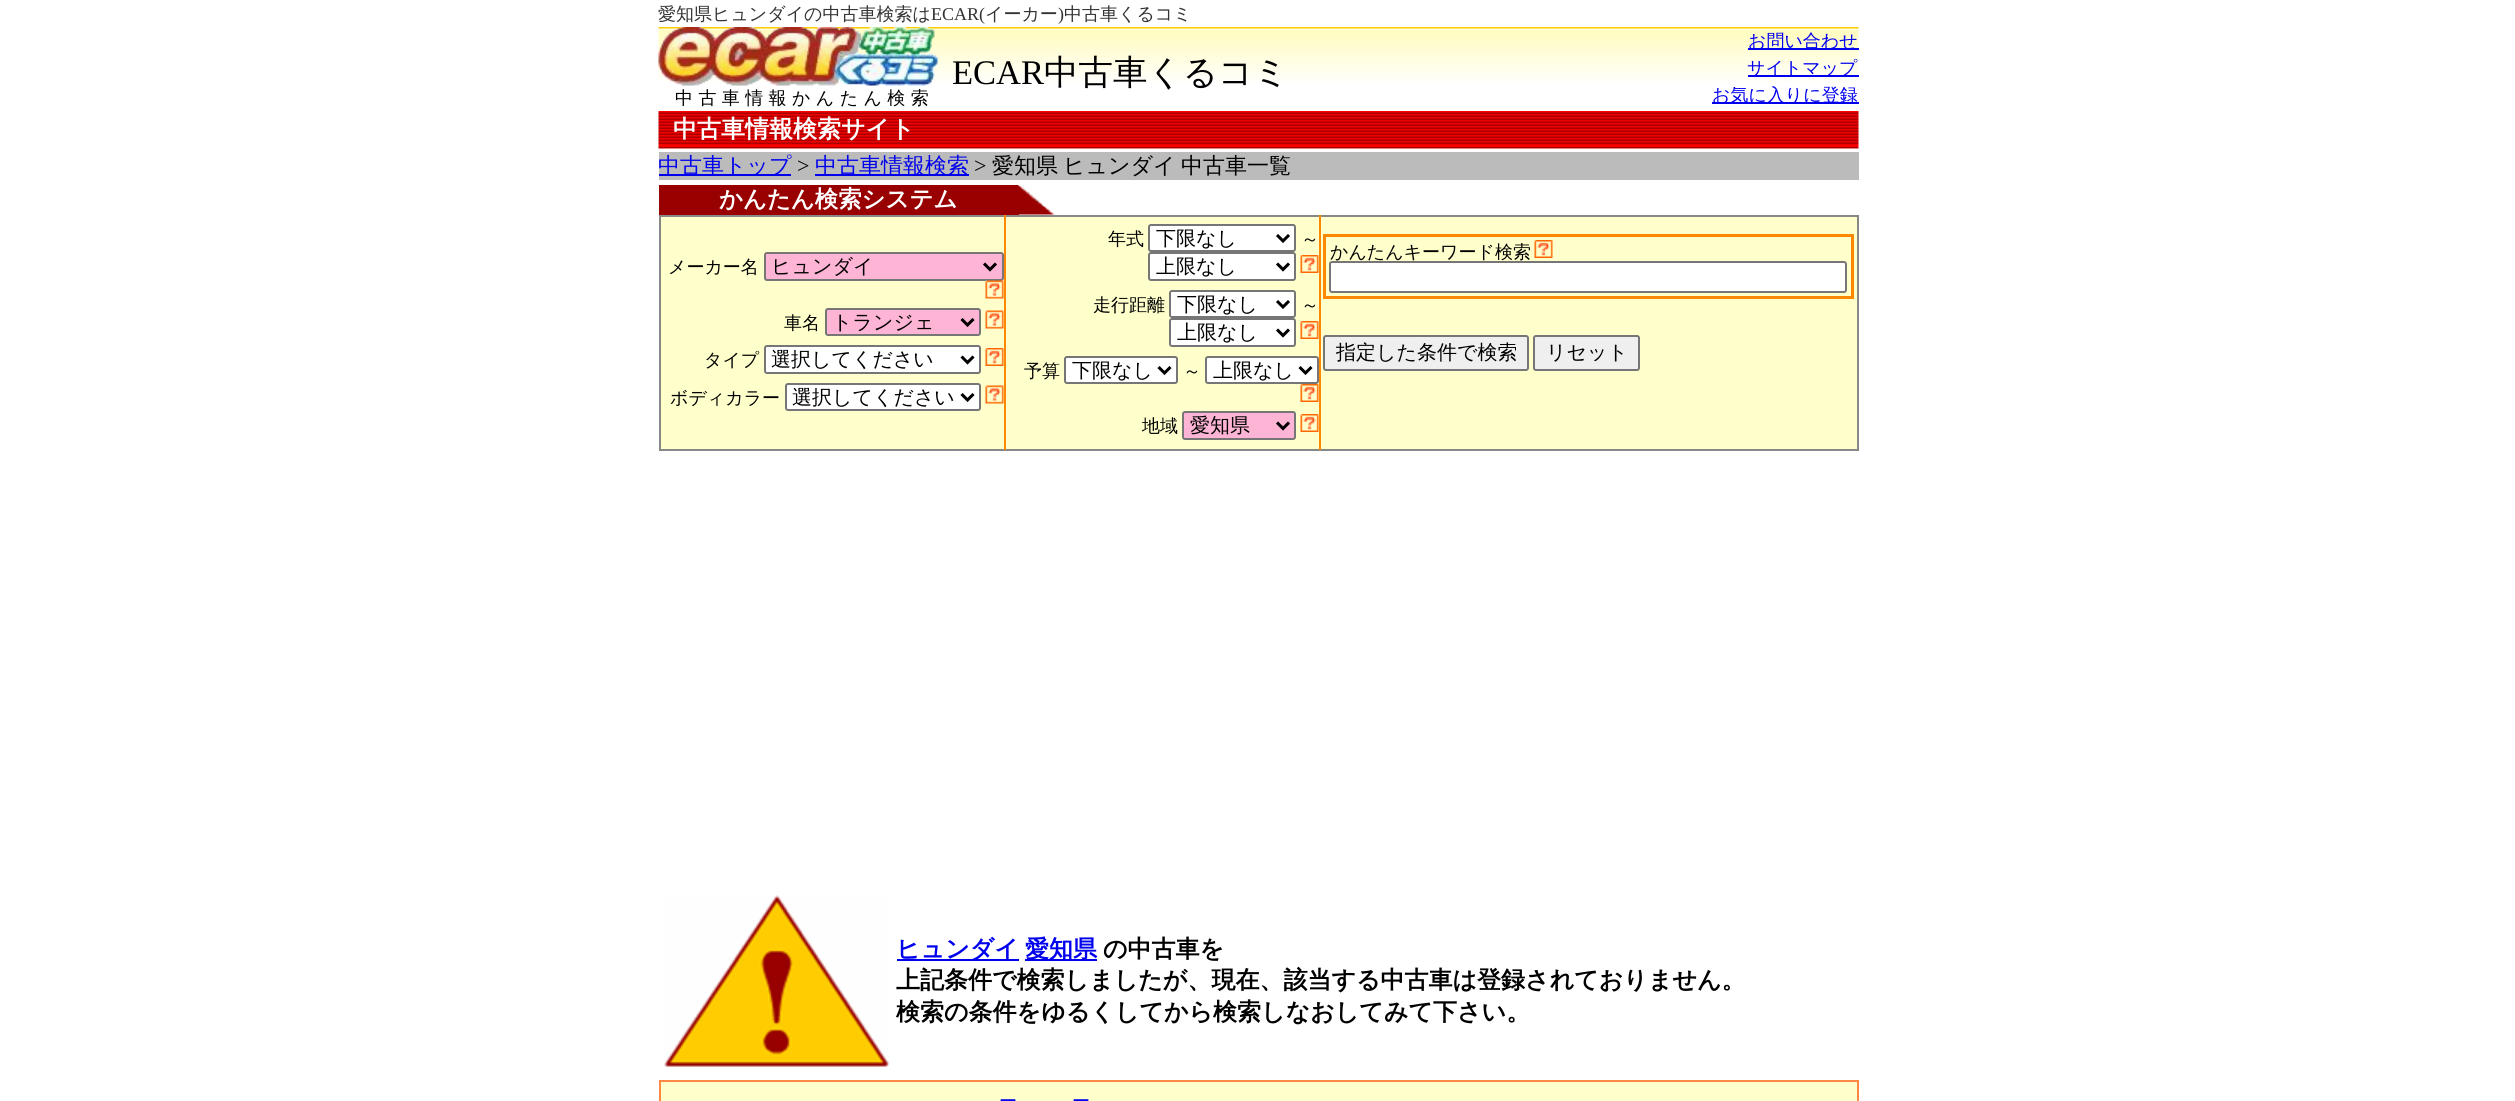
#include <cairo.h>
#include <math.h>
#include <stddef.h>

static cairo_t *ctx;

static void use_color(int r, int g, int b) {
    cairo_set_source_rgb(ctx, r / 255.0, g / 255.0, b / 255.0);
}

static void spaced_text(double x, double y, const char *s, double letter, double word) {
    cairo_move_to(ctx, x, y);
    while (*s) {
        char ch[5] = {0};
        int n = 0;
        do ch[n++] = *s++; while ((*s & 0xC0) == 0x80);
        cairo_show_text(ctx, ch);
        cairo_rel_move_to(ctx, letter + word * (*ch == ' '), 0);
    }
}

static void round_rect(double x, double y, double w, double h, double r) {
    cairo_new_sub_path(ctx);
    cairo_arc(ctx, x + w - r, y + h - r, r, 0, M_PI / 2);
    cairo_arc(ctx, x + r, y + h - r, r, M_PI / 2, M_PI);
    cairo_arc(ctx, x + r, y + r, r, M_PI, 1.5 * M_PI);
    cairo_arc(ctx, x + w - r, y + r, r, 1.5 * M_PI, 2 * M_PI);
    cairo_close_path(ctx);
}

static void picture(const char *path, double x, double y, double w, double h) {
    cairo_surface_t *image = cairo_image_surface_create_from_png(path);
    cairo_save(ctx);
    cairo_set_source_surface(ctx, image, x, y);
    cairo_rectangle(ctx, x, y, w, h);
    cairo_fill(ctx);
    cairo_restore(ctx);
    cairo_surface_destroy(image);
}

int main(void) {
    cairo_surface_t *surface = cairo_image_surface_create(CAIRO_FORMAT_RGB24, 2515, 1101);
    ctx = cairo_create(surface);
    cairo_font_options_t *options = cairo_font_options_create();
    cairo_font_options_set_hint_metrics(options, CAIRO_HINT_METRICS_OFF);
    cairo_font_options_set_hint_style(options, CAIRO_HINT_STYLE_NONE);
    cairo_set_font_options(ctx, options);
    cairo_set_miter_limit(ctx, 4);
    use_color(255, 255, 255);
    cairo_paint(ctx);
    cairo_select_font_face(ctx, "WenQuanYi Zen Hei Medium", CAIRO_FONT_SLANT_NORMAL, CAIRO_FONT_WEIGHT_NORMAL);
    cairo_set_font_size(ctx, 18);
    use_color(51, 51, 51);
    cairo_move_to(ctx, 658, 20);
    cairo_show_text(ctx, "愛知県ヒュンダイの中古車検索は");
    cairo_select_font_face(ctx, "Liberation Serif", CAIRO_FONT_SLANT_NORMAL, CAIRO_FONT_WEIGHT_NORMAL);
    cairo_move_to(ctx, 931, 20);
    cairo_show_text(ctx, "ECAR(");
    cairo_select_font_face(ctx, "WenQuanYi Zen Hei Medium", CAIRO_FONT_SLANT_NORMAL, CAIRO_FONT_WEIGHT_NORMAL);
    cairo_move_to(ctx, 985, 20);
    cairo_show_text(ctx, "イーカー");
    cairo_select_font_face(ctx, "Liberation Serif", CAIRO_FONT_SLANT_NORMAL, CAIRO_FONT_WEIGHT_NORMAL);
    cairo_move_to(ctx, 1058, 20);
    cairo_show_text(ctx, ")");
    cairo_select_font_face(ctx, "WenQuanYi Zen Hei Medium", CAIRO_FONT_SLANT_NORMAL, CAIRO_FONT_WEIGHT_NORMAL);
    cairo_move_to(ctx, 1064, 20);
    cairo_show_text(ctx, "中古車くるコミ");
    picture("img1.png", 658, 27, 1201, 55);
    cairo_select_font_face(ctx, "Liberation Serif", CAIRO_FONT_SLANT_NORMAL, CAIRO_FONT_WEIGHT_NORMAL);
    cairo_set_font_size(ctx, 34.5);
    use_color(0, 0, 0);
    cairo_move_to(ctx, 952, 84);
    cairo_show_text(ctx, "ECAR");
    cairo_select_font_face(ctx, "WenQuanYi Zen Hei Medium", CAIRO_FONT_SLANT_NORMAL, CAIRO_FONT_WEIGHT_NORMAL);
    cairo_move_to(ctx, 1044, 84);
    cairo_show_text(ctx, "中古車くるコミ");
    use_color(0, 0, 238);
    cairo_rectangle(ctx, 1748, 48, 111, 2);
    cairo_fill(ctx);
    cairo_set_font_size(ctx, 18);
    cairo_move_to(ctx, 1748, 47);
    cairo_show_text(ctx, "お問い合わせ");
    cairo_rectangle(ctx, 1748, 75, 111, 2);
    cairo_fill(ctx);
    cairo_move_to(ctx, 1747, 74);
    cairo_show_text(ctx, "サイトマップ");
    cairo_rectangle(ctx, 1712, 102, 147, 2);
    cairo_fill(ctx);
    cairo_move_to(ctx, 1712, 101);
    cairo_show_text(ctx, "お気に入りに登録");
    picture("img2.png", 658, 27, 280, 59);
    use_color(0, 0, 0);
    spaced_text(675, 104, "中古車情報かんたん検索", 5.4, 0);
    picture("img3.png", 658, 111, 1201, 38);
    cairo_select_font_face(ctx, "WenQuanYi Zen Hei", CAIRO_FONT_SLANT_NORMAL, CAIRO_FONT_WEIGHT_BOLD);
    cairo_set_font_size(ctx, 24);
    use_color(255, 255, 255);
    cairo_move_to(ctx, 673, 137);
    cairo_show_text(ctx, "中古車情報検索サイト");
    use_color(187, 187, 187);
    cairo_rectangle(ctx, 659, 152, 1200, 28);
    cairo_fill(ctx);
    use_color(0, 0, 238);
    cairo_rectangle(ctx, 659, 174, 132, 2);
    cairo_fill(ctx);
    cairo_select_font_face(ctx, "WenQuanYi Zen Hei Medium", CAIRO_FONT_SLANT_NORMAL, CAIRO_FONT_WEIGHT_NORMAL);
    cairo_set_font_size(ctx, 22);
    cairo_move_to(ctx, 658, 173);
    cairo_show_text(ctx, "中古車トップ");
    cairo_select_font_face(ctx, "Liberation Serif", CAIRO_FONT_SLANT_NORMAL, CAIRO_FONT_WEIGHT_NORMAL);
    use_color(0, 0, 0);
    cairo_move_to(ctx, 797, 173);
    cairo_show_text(ctx, ">");
    use_color(0, 0, 238);
    cairo_rectangle(ctx, 815, 174, 154, 2);
    cairo_fill(ctx);
    cairo_select_font_face(ctx, "WenQuanYi Zen Hei Medium", CAIRO_FONT_SLANT_NORMAL, CAIRO_FONT_WEIGHT_NORMAL);
    cairo_move_to(ctx, 815, 173);
    cairo_show_text(ctx, "中古車情報検索");
    cairo_select_font_face(ctx, "Liberation Serif", CAIRO_FONT_SLANT_NORMAL, CAIRO_FONT_WEIGHT_NORMAL);
    use_color(0, 0, 0);
    cairo_move_to(ctx, 974, 173);
    cairo_show_text(ctx, ">");
    cairo_select_font_face(ctx, "WenQuanYi Zen Hei Medium", CAIRO_FONT_SLANT_NORMAL, CAIRO_FONT_WEIGHT_NORMAL);
    cairo_move_to(ctx, 992, 173);
    cairo_show_text(ctx, "愛知県");
    cairo_move_to(ctx, 1063, 173);
    cairo_show_text(ctx, "ヒュンダイ");
    cairo_move_to(ctx, 1181, 173);
    cairo_show_text(ctx, "中古車一覧");
    use_color(153, 0, 0);
    cairo_rectangle(ctx, 659, 185, 360, 30);
    cairo_fill(ctx);
    cairo_select_font_face(ctx, "WenQuanYi Zen Hei", CAIRO_FONT_SLANT_NORMAL, CAIRO_FONT_WEIGHT_BOLD);
    cairo_set_font_size(ctx, 23.4);
    use_color(255, 255, 255);
    cairo_move_to(ctx, 719, 207);
    cairo_show_text(ctx, "かんたん検索システム");
    picture("img4.png", 1018, 185, 37, 30);
    use_color(255, 255, 204);
    cairo_rectangle(ctx, 661, 217, 1196, 232);
    cairo_fill(ctx);
    use_color(136, 136, 136);
    cairo_rectangle(ctx, 659, 215, 1200, 2);
    cairo_fill(ctx);
    cairo_rectangle(ctx, 1857, 215, 2, 235);
    cairo_fill(ctx);
    cairo_rectangle(ctx, 659, 449, 1200, 2);
    cairo_fill(ctx);
    cairo_rectangle(ctx, 659, 215, 2, 235);
    cairo_fill(ctx);
    cairo_select_font_face(ctx, "WenQuanYi Zen Hei Medium", CAIRO_FONT_SLANT_NORMAL, CAIRO_FONT_WEIGHT_NORMAL);
    cairo_set_font_size(ctx, 18);
    use_color(0, 0, 0);
    cairo_move_to(ctx, 668, 273);
    cairo_show_text(ctx, "メーカー名");
    use_color(254, 180, 213);
    round_rect(765, 253, 238, 27, 2);
    cairo_fill_preserve(ctx);
    use_color(118, 118, 118);
    cairo_stroke(ctx);
    cairo_new_path(ctx);
    cairo_move_to(ctx, 984, 263.5);
    cairo_line_to(ctx, 990, 269.5);
    cairo_line_to(ctx, 996, 263.5);
    use_color(0, 0, 0);
    cairo_set_line_width(ctx, 3);
    cairo_stroke(ctx);
    cairo_set_font_size(ctx, 20);
    cairo_move_to(ctx, 771, 273);
    cairo_show_text(ctx, "ヒュンダイ");
    picture("img5.png", 985, 280, 19, 19);
    cairo_set_font_size(ctx, 18);
    cairo_move_to(ctx, 784, 329);
    cairo_show_text(ctx, "車名");
    use_color(254, 180, 213);
    round_rect(826, 309, 154, 26, 2);
    cairo_fill_preserve(ctx);
    use_color(118, 118, 118);
    cairo_set_line_width(ctx, 2);
    cairo_stroke(ctx);
    cairo_new_path(ctx);
    cairo_move_to(ctx, 961.5, 319);
    cairo_line_to(ctx, 967.5, 325);
    cairo_line_to(ctx, 973.5, 319);
    use_color(0, 0, 0);
    cairo_set_line_width(ctx, 3);
    cairo_stroke(ctx);
    cairo_set_font_size(ctx, 20);
    cairo_move_to(ctx, 832, 329);
    cairo_show_text(ctx, "トランジェ");
    picture("img6.png", 985, 310, 19, 19);
    cairo_set_font_size(ctx, 18);
    cairo_move_to(ctx, 704, 366);
    cairo_show_text(ctx, "タイプ");
    use_color(255, 255, 255);
    round_rect(765, 346, 215, 27, 2);
    cairo_fill_preserve(ctx);
    use_color(118, 118, 118);
    cairo_set_line_width(ctx, 2);
    cairo_stroke(ctx);
    cairo_new_path(ctx);
    cairo_move_to(ctx, 961.5, 356.5);
    cairo_line_to(ctx, 967.5, 362.5);
    cairo_line_to(ctx, 973.5, 356.5);
    use_color(0, 0, 0);
    cairo_set_line_width(ctx, 3);
    cairo_stroke(ctx);
    cairo_set_font_size(ctx, 20);
    cairo_move_to(ctx, 771, 366);
    cairo_show_text(ctx, "選択してください");
    picture("img7.png", 985, 348, 19, 18);
    cairo_set_font_size(ctx, 18);
    cairo_move_to(ctx, 670, 404);
    cairo_show_text(ctx, "ボディカラー");
    use_color(255, 255, 255);
    round_rect(786, 384, 194, 26, 2);
    cairo_fill_preserve(ctx);
    use_color(118, 118, 118);
    cairo_set_line_width(ctx, 2);
    cairo_stroke(ctx);
    cairo_new_path(ctx);
    cairo_move_to(ctx, 961.5, 394);
    cairo_line_to(ctx, 967.5, 400);
    cairo_line_to(ctx, 973.5, 394);
    use_color(0, 0, 0);
    cairo_set_line_width(ctx, 3);
    cairo_stroke(ctx);
    cairo_set_font_size(ctx, 20);
    cairo_move_to(ctx, 792, 404);
    cairo_show_text(ctx, "選択してください");
    picture("img6.png", 985, 385, 19, 19);
    use_color(255, 136, 0);
    cairo_rectangle(ctx, 1319, 215, 2, 235);
    cairo_fill(ctx);
    cairo_rectangle(ctx, 1004, 215, 2, 235);
    cairo_fill(ctx);
    cairo_set_font_size(ctx, 18);
    use_color(0, 0, 0);
    cairo_move_to(ctx, 1108, 245);
    cairo_show_text(ctx, "年式");
    use_color(255, 255, 255);
    round_rect(1149, 225, 146, 26, 2);
    cairo_fill_preserve(ctx);
    use_color(118, 118, 118);
    cairo_set_line_width(ctx, 2);
    cairo_stroke(ctx);
    cairo_new_path(ctx);
    cairo_move_to(ctx, 1277, 235);
    cairo_line_to(ctx, 1283, 241);
    cairo_line_to(ctx, 1289, 235);
    use_color(0, 0, 0);
    cairo_set_line_width(ctx, 3);
    cairo_stroke(ctx);
    cairo_set_font_size(ctx, 20);
    cairo_move_to(ctx, 1156, 245);
    cairo_show_text(ctx, "下限なし");
    cairo_set_font_size(ctx, 18);
    cairo_move_to(ctx, 1301, 245);
    cairo_show_text(ctx, "～");
    use_color(255, 255, 255);
    round_rect(1149, 253, 146, 27, 2);
    cairo_fill_preserve(ctx);
    use_color(118, 118, 118);
    cairo_set_line_width(ctx, 2);
    cairo_stroke(ctx);
    cairo_new_path(ctx);
    cairo_move_to(ctx, 1277, 263.5);
    cairo_line_to(ctx, 1283, 269.5);
    cairo_line_to(ctx, 1289, 263.5);
    use_color(0, 0, 0);
    cairo_set_line_width(ctx, 3);
    cairo_stroke(ctx);
    cairo_set_font_size(ctx, 20);
    cairo_move_to(ctx, 1156, 273);
    cairo_show_text(ctx, "上限なし");
    picture("img8.png", 1300, 255, 19, 18);
    cairo_set_font_size(ctx, 18);
    cairo_move_to(ctx, 1093, 311);
    cairo_show_text(ctx, "走行距離");
    use_color(255, 255, 255);
    round_rect(1170, 291, 125, 26, 2);
    cairo_fill_preserve(ctx);
    use_color(118, 118, 118);
    cairo_set_line_width(ctx, 2);
    cairo_stroke(ctx);
    cairo_new_path(ctx);
    cairo_move_to(ctx, 1277, 301);
    cairo_line_to(ctx, 1283, 307);
    cairo_line_to(ctx, 1289, 301);
    use_color(0, 0, 0);
    cairo_set_line_width(ctx, 3);
    cairo_stroke(ctx);
    cairo_set_font_size(ctx, 20);
    cairo_move_to(ctx, 1177, 311);
    cairo_show_text(ctx, "下限なし");
    cairo_set_font_size(ctx, 18);
    cairo_move_to(ctx, 1301, 311);
    cairo_show_text(ctx, "～");
    use_color(255, 255, 255);
    round_rect(1170, 319, 125, 27, 2);
    cairo_fill_preserve(ctx);
    use_color(118, 118, 118);
    cairo_set_line_width(ctx, 2);
    cairo_stroke(ctx);
    cairo_new_path(ctx);
    cairo_move_to(ctx, 1277, 329.5);
    cairo_line_to(ctx, 1283, 335.5);
    cairo_line_to(ctx, 1289, 329.5);
    use_color(0, 0, 0);
    cairo_set_line_width(ctx, 3);
    cairo_stroke(ctx);
    cairo_set_font_size(ctx, 20);
    cairo_move_to(ctx, 1177, 339);
    cairo_show_text(ctx, "上限なし");
    picture("img8.png", 1300, 321, 19, 18);
    cairo_set_font_size(ctx, 18);
    cairo_move_to(ctx, 1024, 377);
    cairo_show_text(ctx, "予算");
    use_color(255, 255, 255);
    round_rect(1065, 357, 112, 26, 2);
    cairo_fill_preserve(ctx);
    use_color(118, 118, 118);
    cairo_set_line_width(ctx, 2);
    cairo_stroke(ctx);
    cairo_new_path(ctx);
    cairo_move_to(ctx, 1158.5, 367);
    cairo_line_to(ctx, 1164.5, 373);
    cairo_line_to(ctx, 1170.5, 367);
    use_color(0, 0, 0);
    cairo_set_line_width(ctx, 3);
    cairo_stroke(ctx);
    cairo_set_font_size(ctx, 20);
    cairo_move_to(ctx, 1072, 377);
    cairo_show_text(ctx, "下限なし");
    cairo_set_font_size(ctx, 18);
    cairo_move_to(ctx, 1183, 377);
    cairo_show_text(ctx, "～");
    use_color(255, 255, 255);
    round_rect(1206, 357, 112, 26, 2);
    cairo_fill_preserve(ctx);
    use_color(118, 118, 118);
    cairo_set_line_width(ctx, 2);
    cairo_stroke(ctx);
    cairo_new_path(ctx);
    cairo_move_to(ctx, 1299.5, 367);
    cairo_line_to(ctx, 1305.5, 373);
    cairo_line_to(ctx, 1311.5, 367);
    use_color(0, 0, 0);
    cairo_set_line_width(ctx, 3);
    cairo_stroke(ctx);
    cairo_set_font_size(ctx, 20);
    cairo_move_to(ctx, 1213, 377);
    cairo_show_text(ctx, "上限なし");
    picture("img8.png", 1300, 384, 19, 18);
    cairo_set_font_size(ctx, 18);
    cairo_move_to(ctx, 1142, 432);
    cairo_show_text(ctx, "地域");
    use_color(254, 180, 213);
    round_rect(1183, 412, 112, 27, 2);
    cairo_fill_preserve(ctx);
    use_color(118, 118, 118);
    cairo_set_line_width(ctx, 2);
    cairo_stroke(ctx);
    cairo_new_path(ctx);
    cairo_move_to(ctx, 1277, 422.5);
    cairo_line_to(ctx, 1283, 428.5);
    cairo_line_to(ctx, 1289, 422.5);
    use_color(0, 0, 0);
    cairo_set_line_width(ctx, 3);
    cairo_stroke(ctx);
    cairo_set_font_size(ctx, 20);
    cairo_move_to(ctx, 1190, 432);
    cairo_show_text(ctx, "愛知県");
    picture("img8.png", 1300, 414, 19, 18);
    cairo_rectangle(ctx, 1324.5, 235.5, 528, 62);
    use_color(255, 136, 0);
    cairo_stroke(ctx);
    cairo_set_font_size(ctx, 18);
    use_color(0, 0, 0);
    cairo_move_to(ctx, 1330, 258);
    cairo_show_text(ctx, "かんたんキーワード検索");
    picture("img7.png", 1534, 240, 19, 18);
    use_color(255, 255, 255);
    round_rect(1330, 262, 516, 30, 2);
    cairo_fill_preserve(ctx);
    use_color(118, 118, 118);
    cairo_set_line_width(ctx, 2);
    cairo_stroke(ctx);
    use_color(239, 239, 239);
    round_rect(1324, 336, 204, 34, 2);
    cairo_fill_preserve(ctx);
    use_color(118, 118, 118);
    cairo_stroke(ctx);
    cairo_set_font_size(ctx, 20);
    use_color(0, 0, 0);
    cairo_move_to(ctx, 1336, 359);
    cairo_show_text(ctx, "指定した条件で検索");
    use_color(239, 239, 239);
    round_rect(1534, 336, 105, 34, 2);
    cairo_fill_preserve(ctx);
    use_color(118, 118, 118);
    cairo_stroke(ctx);
    use_color(0, 0, 0);
    cairo_move_to(ctx, 1546, 359);
    cairo_show_text(ctx, "リセット");
    picture("img9.png", 664, 895, 226, 172);
    use_color(0, 0, 238);
    cairo_rectangle(ctx, 897, 959, 122, 2);
    cairo_fill(ctx);
    cairo_select_font_face(ctx, "WenQuanYi Zen Hei", CAIRO_FONT_SLANT_NORMAL, CAIRO_FONT_WEIGHT_BOLD);
    cairo_set_font_size(ctx, 24);
    cairo_move_to(ctx, 896, 957);
    cairo_show_text(ctx, "ヒュンダイ");
    cairo_rectangle(ctx, 1025, 959, 72, 2);
    cairo_fill(ctx);
    cairo_move_to(ctx, 1025, 957);
    cairo_show_text(ctx, "愛知県");
    use_color(0, 0, 0);
    cairo_move_to(ctx, 1103, 957);
    cairo_show_text(ctx, "の中古車を");
    cairo_move_to(ctx, 896, 988);
    cairo_show_text(ctx, "上記条件で検索しましたが、現在、該当する中古車は登録されておりません。");
    cairo_move_to(ctx, 896, 1020);
    cairo_show_text(ctx, "検索の条件をゆるくしてから検索しなおしてみて下さい。");
    use_color(255, 255, 204);
    cairo_rectangle(ctx, 660, 1081, 1198, 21);
    cairo_fill_preserve(ctx);
    use_color(255, 136, 68);
    cairo_stroke(ctx);
    cairo_select_font_face(ctx, "WenQuanYi Zen Hei Medium", CAIRO_FONT_SLANT_NORMAL, CAIRO_FONT_WEIGHT_NORMAL);
    cairo_set_font_size(ctx, 18);
    use_color(0, 0, 238);
    cairo_move_to(ctx, 999, 1107);
    cairo_show_text(ctx, "ー");
    cairo_move_to(ctx, 1072, 1107);
    cairo_show_text(ctx, "ー");
    cairo_surface_write_to_png(surface, "result.png");
    cairo_font_options_destroy(options);
    cairo_destroy(ctx);
    cairo_surface_destroy(surface);
    return 0;
}
